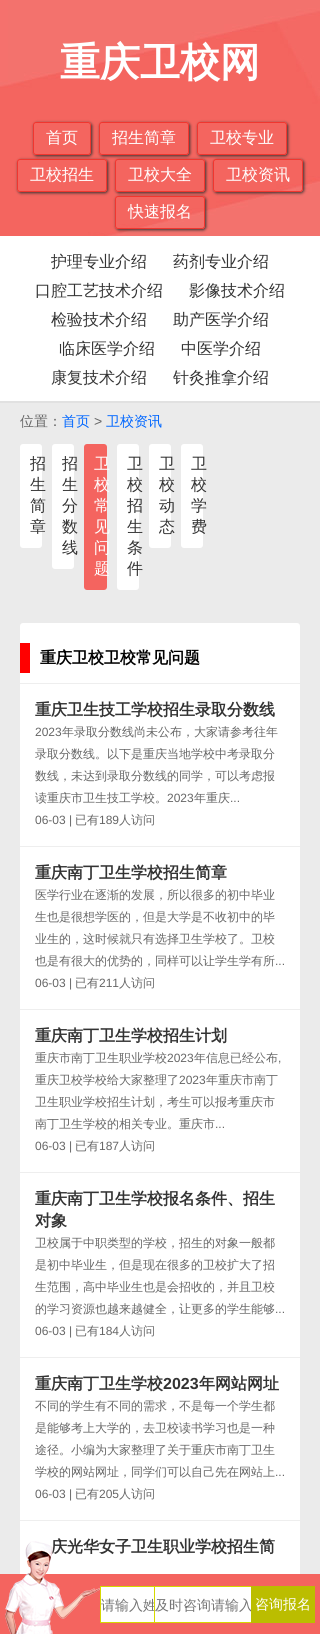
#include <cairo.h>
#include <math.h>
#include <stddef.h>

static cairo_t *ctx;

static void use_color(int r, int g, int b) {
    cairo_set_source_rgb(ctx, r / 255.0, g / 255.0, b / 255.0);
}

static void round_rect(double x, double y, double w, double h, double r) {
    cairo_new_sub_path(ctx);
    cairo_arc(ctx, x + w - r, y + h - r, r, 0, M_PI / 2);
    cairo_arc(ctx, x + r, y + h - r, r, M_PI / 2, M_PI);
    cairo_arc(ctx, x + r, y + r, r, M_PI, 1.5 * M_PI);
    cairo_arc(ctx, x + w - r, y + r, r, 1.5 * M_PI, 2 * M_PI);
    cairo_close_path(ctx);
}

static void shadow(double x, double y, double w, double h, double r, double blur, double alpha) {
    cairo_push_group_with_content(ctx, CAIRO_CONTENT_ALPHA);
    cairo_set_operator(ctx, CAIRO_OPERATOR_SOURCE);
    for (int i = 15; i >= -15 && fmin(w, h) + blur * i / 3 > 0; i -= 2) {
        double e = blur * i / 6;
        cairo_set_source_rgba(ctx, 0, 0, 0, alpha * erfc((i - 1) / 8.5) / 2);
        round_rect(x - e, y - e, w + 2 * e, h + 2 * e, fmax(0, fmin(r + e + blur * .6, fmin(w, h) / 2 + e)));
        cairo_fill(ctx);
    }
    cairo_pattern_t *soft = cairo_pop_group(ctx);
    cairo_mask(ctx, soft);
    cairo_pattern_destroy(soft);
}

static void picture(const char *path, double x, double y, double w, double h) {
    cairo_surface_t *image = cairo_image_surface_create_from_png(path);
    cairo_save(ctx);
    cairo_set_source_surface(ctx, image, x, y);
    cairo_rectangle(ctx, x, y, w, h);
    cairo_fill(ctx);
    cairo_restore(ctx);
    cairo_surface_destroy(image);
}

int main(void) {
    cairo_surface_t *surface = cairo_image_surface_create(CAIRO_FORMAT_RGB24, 320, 1634);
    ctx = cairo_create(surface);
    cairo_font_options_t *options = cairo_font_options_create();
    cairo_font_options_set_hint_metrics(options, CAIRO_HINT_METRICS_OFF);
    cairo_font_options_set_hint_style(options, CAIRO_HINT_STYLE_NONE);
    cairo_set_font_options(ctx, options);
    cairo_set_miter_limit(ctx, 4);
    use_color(235, 235, 235);
    cairo_paint(ctx);
    picture("img1.png", 0, 0, 320, 236);
    cairo_select_font_face(ctx, "WenQuanYi Zen Hei", CAIRO_FONT_SLANT_NORMAL, CAIRO_FONT_WEIGHT_BOLD);
    cairo_set_font_size(ctx, 40);
    use_color(255, 255, 255);
    cairo_move_to(ctx, 60, 76);
    cairo_show_text(ctx, "重庆卫校网");
    cairo_save(ctx);
    cairo_set_fill_rule(ctx, CAIRO_FILL_RULE_EVEN_ODD);
    cairo_new_path(ctx);
    cairo_move_to(ctx, 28, 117);
    cairo_line_to(ctx, 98, 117);
    cairo_line_to(ctx, 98, 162);
    cairo_line_to(ctx, 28, 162);
    cairo_close_path(ctx);
    cairo_move_to(ctx, 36, 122);
    cairo_line_to(ctx, 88, 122);
    cairo_curve_to(ctx, 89.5, 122, 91, 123.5, 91, 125);
    cairo_line_to(ctx, 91, 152);
    cairo_curve_to(ctx, 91, 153.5, 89.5, 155, 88, 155);
    cairo_line_to(ctx, 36, 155);
    cairo_curve_to(ctx, 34.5, 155, 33, 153.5, 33, 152);
    cairo_line_to(ctx, 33, 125);
    cairo_curve_to(ctx, 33, 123.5, 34.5, 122, 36, 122);
    cairo_close_path(ctx);
    cairo_clip(ctx);
    use_color(51, 51, 51);
    shadow(34, 123, 58, 33, 3, 1.5, 1);
    cairo_restore(ctx);
    round_rect(33.5, 122.5, 57, 32, 2.5);
    use_color(241, 54, 47);
    cairo_set_line_width(ctx, 1);
    cairo_stroke(ctx);
    cairo_select_font_face(ctx, "WenQuanYi Zen Hei Medium", CAIRO_FONT_SLANT_NORMAL, CAIRO_FONT_WEIGHT_NORMAL);
    cairo_set_font_size(ctx, 16);
    use_color(255, 255, 255);
    cairo_move_to(ctx, 46, 143);
    cairo_show_text(ctx, "首页");
    cairo_save(ctx);
    cairo_set_fill_rule(ctx, CAIRO_FILL_RULE_EVEN_ODD);
    cairo_new_path(ctx);
    cairo_move_to(ctx, 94, 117);
    cairo_line_to(ctx, 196, 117);
    cairo_line_to(ctx, 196, 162);
    cairo_line_to(ctx, 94, 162);
    cairo_close_path(ctx);
    cairo_move_to(ctx, 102, 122);
    cairo_line_to(ctx, 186, 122);
    cairo_curve_to(ctx, 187.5, 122, 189, 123.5, 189, 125);
    cairo_line_to(ctx, 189, 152);
    cairo_curve_to(ctx, 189, 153.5, 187.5, 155, 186, 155);
    cairo_line_to(ctx, 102, 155);
    cairo_curve_to(ctx, 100.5, 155, 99, 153.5, 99, 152);
    cairo_line_to(ctx, 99, 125);
    cairo_curve_to(ctx, 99, 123.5, 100.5, 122, 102, 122);
    cairo_close_path(ctx);
    cairo_clip(ctx);
    use_color(51, 51, 51);
    shadow(100, 123, 90, 33, 3, 1.5, 1);
    cairo_restore(ctx);
    round_rect(99.5, 122.5, 89, 32, 2.5);
    use_color(241, 54, 47);
    cairo_stroke(ctx);
    use_color(255, 255, 255);
    cairo_move_to(ctx, 112, 143);
    cairo_show_text(ctx, "招生简章");
    cairo_save(ctx);
    cairo_set_fill_rule(ctx, CAIRO_FILL_RULE_EVEN_ODD);
    cairo_new_path(ctx);
    cairo_move_to(ctx, 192, 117);
    cairo_line_to(ctx, 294, 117);
    cairo_line_to(ctx, 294, 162);
    cairo_line_to(ctx, 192, 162);
    cairo_close_path(ctx);
    cairo_move_to(ctx, 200, 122);
    cairo_line_to(ctx, 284, 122);
    cairo_curve_to(ctx, 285.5, 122, 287, 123.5, 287, 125);
    cairo_line_to(ctx, 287, 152);
    cairo_curve_to(ctx, 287, 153.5, 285.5, 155, 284, 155);
    cairo_line_to(ctx, 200, 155);
    cairo_curve_to(ctx, 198.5, 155, 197, 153.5, 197, 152);
    cairo_line_to(ctx, 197, 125);
    cairo_curve_to(ctx, 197, 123.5, 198.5, 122, 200, 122);
    cairo_close_path(ctx);
    cairo_clip(ctx);
    use_color(51, 51, 51);
    shadow(198, 123, 90, 33, 3, 1.5, 1);
    cairo_restore(ctx);
    round_rect(197.5, 122.5, 89, 32, 2.5);
    use_color(241, 54, 47);
    cairo_stroke(ctx);
    use_color(255, 255, 255);
    cairo_move_to(ctx, 210, 143);
    cairo_show_text(ctx, "卫校专业");
    cairo_save(ctx);
    cairo_set_fill_rule(ctx, CAIRO_FILL_RULE_EVEN_ODD);
    cairo_new_path(ctx);
    cairo_move_to(ctx, 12, 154);
    cairo_line_to(ctx, 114, 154);
    cairo_line_to(ctx, 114, 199);
    cairo_line_to(ctx, 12, 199);
    cairo_close_path(ctx);
    cairo_move_to(ctx, 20, 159);
    cairo_line_to(ctx, 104, 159);
    cairo_curve_to(ctx, 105.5, 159, 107, 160.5, 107, 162);
    cairo_line_to(ctx, 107, 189);
    cairo_curve_to(ctx, 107, 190.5, 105.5, 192, 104, 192);
    cairo_line_to(ctx, 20, 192);
    cairo_curve_to(ctx, 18.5, 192, 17, 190.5, 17, 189);
    cairo_line_to(ctx, 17, 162);
    cairo_curve_to(ctx, 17, 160.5, 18.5, 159, 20, 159);
    cairo_close_path(ctx);
    cairo_clip(ctx);
    use_color(51, 51, 51);
    shadow(18, 160, 90, 33, 3, 1.5, 1);
    cairo_restore(ctx);
    round_rect(17.5, 159.5, 89, 32, 2.5);
    use_color(241, 54, 47);
    cairo_stroke(ctx);
    use_color(255, 255, 255);
    cairo_move_to(ctx, 30, 180);
    cairo_show_text(ctx, "卫校招生");
    cairo_save(ctx);
    cairo_set_fill_rule(ctx, CAIRO_FILL_RULE_EVEN_ODD);
    cairo_new_path(ctx);
    cairo_move_to(ctx, 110, 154);
    cairo_line_to(ctx, 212, 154);
    cairo_line_to(ctx, 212, 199);
    cairo_line_to(ctx, 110, 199);
    cairo_close_path(ctx);
    cairo_move_to(ctx, 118, 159);
    cairo_line_to(ctx, 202, 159);
    cairo_curve_to(ctx, 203.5, 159, 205, 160.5, 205, 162);
    cairo_line_to(ctx, 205, 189);
    cairo_curve_to(ctx, 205, 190.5, 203.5, 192, 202, 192);
    cairo_line_to(ctx, 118, 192);
    cairo_curve_to(ctx, 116.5, 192, 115, 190.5, 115, 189);
    cairo_line_to(ctx, 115, 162);
    cairo_curve_to(ctx, 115, 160.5, 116.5, 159, 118, 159);
    cairo_close_path(ctx);
    cairo_clip(ctx);
    use_color(51, 51, 51);
    shadow(116, 160, 90, 33, 3, 1.5, 1);
    cairo_restore(ctx);
    round_rect(115.5, 159.5, 89, 32, 2.5);
    use_color(241, 54, 47);
    cairo_stroke(ctx);
    use_color(255, 255, 255);
    cairo_move_to(ctx, 128, 180);
    cairo_show_text(ctx, "卫校大全");
    cairo_save(ctx);
    cairo_set_fill_rule(ctx, CAIRO_FILL_RULE_EVEN_ODD);
    cairo_new_path(ctx);
    cairo_move_to(ctx, 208, 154);
    cairo_line_to(ctx, 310, 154);
    cairo_line_to(ctx, 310, 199);
    cairo_line_to(ctx, 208, 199);
    cairo_close_path(ctx);
    cairo_move_to(ctx, 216, 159);
    cairo_line_to(ctx, 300, 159);
    cairo_curve_to(ctx, 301.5, 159, 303, 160.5, 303, 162);
    cairo_line_to(ctx, 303, 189);
    cairo_curve_to(ctx, 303, 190.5, 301.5, 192, 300, 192);
    cairo_line_to(ctx, 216, 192);
    cairo_curve_to(ctx, 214.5, 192, 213, 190.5, 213, 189);
    cairo_line_to(ctx, 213, 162);
    cairo_curve_to(ctx, 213, 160.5, 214.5, 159, 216, 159);
    cairo_close_path(ctx);
    cairo_clip(ctx);
    use_color(51, 51, 51);
    shadow(214, 160, 90, 33, 3, 1.5, 1);
    cairo_restore(ctx);
    round_rect(213.5, 159.5, 89, 32, 2.5);
    use_color(241, 54, 47);
    cairo_stroke(ctx);
    use_color(255, 255, 255);
    cairo_move_to(ctx, 226, 180);
    cairo_show_text(ctx, "卫校资讯");
    cairo_save(ctx);
    cairo_set_fill_rule(ctx, CAIRO_FILL_RULE_EVEN_ODD);
    cairo_new_path(ctx);
    cairo_move_to(ctx, 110, 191);
    cairo_line_to(ctx, 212, 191);
    cairo_line_to(ctx, 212, 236);
    cairo_line_to(ctx, 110, 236);
    cairo_close_path(ctx);
    cairo_move_to(ctx, 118, 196);
    cairo_line_to(ctx, 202, 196);
    cairo_curve_to(ctx, 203.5, 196, 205, 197.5, 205, 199);
    cairo_line_to(ctx, 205, 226);
    cairo_curve_to(ctx, 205, 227.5, 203.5, 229, 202, 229);
    cairo_line_to(ctx, 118, 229);
    cairo_curve_to(ctx, 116.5, 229, 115, 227.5, 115, 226);
    cairo_line_to(ctx, 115, 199);
    cairo_curve_to(ctx, 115, 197.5, 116.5, 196, 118, 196);
    cairo_close_path(ctx);
    cairo_clip(ctx);
    use_color(51, 51, 51);
    shadow(116, 197, 90, 33, 3, 1.5, 1);
    cairo_restore(ctx);
    round_rect(115.5, 196.5, 89, 32, 2.5);
    use_color(241, 54, 47);
    cairo_stroke(ctx);
    use_color(255, 255, 255);
    cairo_move_to(ctx, 128, 217);
    cairo_show_text(ctx, "快速报名");
    cairo_rectangle(ctx, 0, 236, 320, 165);
    cairo_fill(ctx);
    use_color(225, 225, 225);
    cairo_rectangle(ctx, 0, 401, 320, 2);
    cairo_fill(ctx);
    use_color(51, 51, 51);
    cairo_move_to(ctx, 51, 267);
    cairo_show_text(ctx, "护理专业介绍");
    cairo_move_to(ctx, 173, 267);
    cairo_show_text(ctx, "药剂专业介绍");
    cairo_move_to(ctx, 35, 296);
    cairo_show_text(ctx, "口腔工艺技术介绍");
    cairo_move_to(ctx, 189, 296);
    cairo_show_text(ctx, "影像技术介绍");
    cairo_move_to(ctx, 51, 325);
    cairo_show_text(ctx, "检验技术介绍");
    cairo_move_to(ctx, 173, 325);
    cairo_show_text(ctx, "助产医学介绍");
    cairo_move_to(ctx, 59, 354);
    cairo_show_text(ctx, "临床医学介绍");
    cairo_move_to(ctx, 181, 354);
    cairo_show_text(ctx, "中医学介绍");
    cairo_move_to(ctx, 51, 383);
    cairo_show_text(ctx, "康复技术介绍");
    cairo_move_to(ctx, 173, 383);
    cairo_show_text(ctx, "针灸推拿介绍");
    cairo_set_font_size(ctx, 14);
    use_color(102, 102, 102);
    cairo_move_to(ctx, 20, 426);
    cairo_show_text(ctx, "位置：");
    use_color(0, 102, 255);
    cairo_move_to(ctx, 62, 426);
    cairo_show_text(ctx, "首页");
    cairo_select_font_face(ctx, "Liberation Sans", CAIRO_FONT_SLANT_NORMAL, CAIRO_FONT_WEIGHT_NORMAL);
    use_color(102, 102, 102);
    cairo_move_to(ctx, 94, 426);
    cairo_show_text(ctx, ">");
    cairo_select_font_face(ctx, "WenQuanYi Zen Hei Medium", CAIRO_FONT_SLANT_NORMAL, CAIRO_FONT_WEIGHT_NORMAL);
    use_color(0, 102, 255);
    cairo_move_to(ctx, 106, 426);
    cairo_show_text(ctx, "卫校资讯");
    use_color(255, 255, 255);
    round_rect(20, 444, 22, 104, 3);
    cairo_fill(ctx);
    cairo_set_font_size(ctx, 16);
    use_color(51, 51, 51);
    cairo_move_to(ctx, 30, 469);
    cairo_show_text(ctx, "招");
    cairo_move_to(ctx, 30, 490);
    cairo_show_text(ctx, "生");
    cairo_move_to(ctx, 30, 511);
    cairo_show_text(ctx, "简");
    cairo_move_to(ctx, 30, 532);
    cairo_show_text(ctx, "章");
    use_color(255, 255, 255);
    round_rect(52, 444, 22, 125, 3);
    cairo_fill(ctx);
    use_color(51, 51, 51);
    cairo_move_to(ctx, 62, 469);
    cairo_show_text(ctx, "招");
    cairo_move_to(ctx, 62, 490);
    cairo_show_text(ctx, "生");
    cairo_move_to(ctx, 62, 511);
    cairo_show_text(ctx, "分");
    cairo_move_to(ctx, 62, 532);
    cairo_show_text(ctx, "数");
    cairo_move_to(ctx, 62, 553);
    cairo_show_text(ctx, "线");
    use_color(244, 100, 95);
    round_rect(84, 444, 23, 146, 3);
    cairo_fill(ctx);
    use_color(255, 255, 255);
    cairo_move_to(ctx, 94, 469);
    cairo_show_text(ctx, "卫");
    cairo_move_to(ctx, 94, 490);
    cairo_show_text(ctx, "校");
    cairo_move_to(ctx, 94, 511);
    cairo_show_text(ctx, "常");
    cairo_move_to(ctx, 94, 532);
    cairo_show_text(ctx, "见");
    cairo_move_to(ctx, 94, 553);
    cairo_show_text(ctx, "问");
    cairo_move_to(ctx, 94, 574);
    cairo_show_text(ctx, "题");
    round_rect(117, 444, 22, 146, 3);
    cairo_fill(ctx);
    use_color(51, 51, 51);
    cairo_move_to(ctx, 127, 469);
    cairo_show_text(ctx, "卫");
    cairo_move_to(ctx, 127, 490);
    cairo_show_text(ctx, "校");
    cairo_move_to(ctx, 127, 511);
    cairo_show_text(ctx, "招");
    cairo_move_to(ctx, 127, 532);
    cairo_show_text(ctx, "生");
    cairo_move_to(ctx, 127, 553);
    cairo_show_text(ctx, "条");
    cairo_move_to(ctx, 127, 574);
    cairo_show_text(ctx, "件");
    use_color(255, 255, 255);
    round_rect(149, 444, 22, 104, 3);
    cairo_fill(ctx);
    use_color(51, 51, 51);
    cairo_move_to(ctx, 159, 469);
    cairo_show_text(ctx, "卫");
    cairo_move_to(ctx, 159, 490);
    cairo_show_text(ctx, "校");
    cairo_move_to(ctx, 159, 511);
    cairo_show_text(ctx, "动");
    cairo_move_to(ctx, 159, 532);
    cairo_show_text(ctx, "态");
    use_color(255, 255, 255);
    round_rect(181, 444, 22, 104, 3);
    cairo_fill(ctx);
    use_color(51, 51, 51);
    cairo_move_to(ctx, 191, 469);
    cairo_show_text(ctx, "卫");
    cairo_move_to(ctx, 191, 490);
    cairo_show_text(ctx, "校");
    cairo_move_to(ctx, 191, 511);
    cairo_show_text(ctx, "学");
    cairo_move_to(ctx, 191, 532);
    cairo_show_text(ctx, "费");
    use_color(255, 255, 255);
    round_rect(20, 623, 280, 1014, 3);
    cairo_fill(ctx);
    use_color(238, 238, 238);
    cairo_rectangle(ctx, 20, 683, 280, 1);
    cairo_fill(ctx);
    use_color(255, 0, 0);
    cairo_rectangle(ctx, 20, 643, 10, 30);
    cairo_fill(ctx);
    cairo_select_font_face(ctx, "WenQuanYi Zen Hei", CAIRO_FONT_SLANT_NORMAL, CAIRO_FONT_WEIGHT_BOLD);
    use_color(0, 0, 0);
    cairo_move_to(ctx, 40, 663);
    cairo_show_text(ctx, "重庆卫校卫校常见问题");
    use_color(238, 238, 238);
    cairo_rectangle(ctx, 20, 846, 280, 1);
    cairo_fill(ctx);
    use_color(51, 51, 51);
    cairo_move_to(ctx, 35, 715);
    cairo_show_text(ctx, "重庆卫生技工学校招生录取分数线");
    cairo_select_font_face(ctx, "Liberation Sans", CAIRO_FONT_SLANT_NORMAL, CAIRO_FONT_WEIGHT_NORMAL);
    cairo_set_font_size(ctx, 12);
    use_color(102, 102, 102);
    cairo_move_to(ctx, 35, 736);
    cairo_show_text(ctx, "2023");
    cairo_select_font_face(ctx, "WenQuanYi Zen Hei Medium", CAIRO_FONT_SLANT_NORMAL, CAIRO_FONT_WEIGHT_NORMAL);
    cairo_move_to(ctx, 62, 736);
    cairo_show_text(ctx, "年录取分数线尚未公布，大家请参考往年");
    cairo_move_to(ctx, 35, 758);
    cairo_show_text(ctx, "录取分数线。以下是重庆当地学校中考录取分");
    cairo_move_to(ctx, 35, 780);
    cairo_show_text(ctx, "数线，未达到录取分数线的同学，可以考虑报");
    cairo_move_to(ctx, 35, 802);
    cairo_show_text(ctx, "读重庆市卫生技工学校。");
    cairo_select_font_face(ctx, "Liberation Sans", CAIRO_FONT_SLANT_NORMAL, CAIRO_FONT_WEIGHT_NORMAL);
    cairo_move_to(ctx, 167, 802);
    cairo_show_text(ctx, "2023");
    cairo_select_font_face(ctx, "WenQuanYi Zen Hei Medium", CAIRO_FONT_SLANT_NORMAL, CAIRO_FONT_WEIGHT_NORMAL);
    cairo_move_to(ctx, 194, 802);
    cairo_show_text(ctx, "年重庆");
    cairo_select_font_face(ctx, "Liberation Sans", CAIRO_FONT_SLANT_NORMAL, CAIRO_FONT_WEIGHT_NORMAL);
    cairo_move_to(ctx, 230, 802);
    cairo_show_text(ctx, "...");
    cairo_move_to(ctx, 35, 824);
    cairo_show_text(ctx, "06-03 |");
    cairo_select_font_face(ctx, "WenQuanYi Zen Hei Medium", CAIRO_FONT_SLANT_NORMAL, CAIRO_FONT_WEIGHT_NORMAL);
    cairo_move_to(ctx, 75, 824);
    cairo_show_text(ctx, "已有");
    cairo_select_font_face(ctx, "Liberation Sans", CAIRO_FONT_SLANT_NORMAL, CAIRO_FONT_WEIGHT_NORMAL);
    cairo_move_to(ctx, 99, 824);
    cairo_show_text(ctx, "189");
    cairo_select_font_face(ctx, "WenQuanYi Zen Hei Medium", CAIRO_FONT_SLANT_NORMAL, CAIRO_FONT_WEIGHT_NORMAL);
    cairo_move_to(ctx, 119, 824);
    cairo_show_text(ctx, "人访问");
    use_color(238, 238, 238);
    cairo_rectangle(ctx, 20, 1009, 280, 1);
    cairo_fill(ctx);
    cairo_select_font_face(ctx, "WenQuanYi Zen Hei", CAIRO_FONT_SLANT_NORMAL, CAIRO_FONT_WEIGHT_BOLD);
    cairo_set_font_size(ctx, 16);
    use_color(51, 51, 51);
    cairo_move_to(ctx, 35, 878);
    cairo_show_text(ctx, "重庆南丁卫生学校招生简章");
    cairo_select_font_face(ctx, "WenQuanYi Zen Hei Medium", CAIRO_FONT_SLANT_NORMAL, CAIRO_FONT_WEIGHT_NORMAL);
    cairo_set_font_size(ctx, 12);
    use_color(102, 102, 102);
    cairo_move_to(ctx, 35, 899);
    cairo_show_text(ctx, "医学行业在逐渐的发展，所以很多的初中毕业");
    cairo_move_to(ctx, 35, 921);
    cairo_show_text(ctx, "生也是很想学医的，但是大学是不收初中的毕");
    cairo_move_to(ctx, 35, 943);
    cairo_show_text(ctx, "业生的，这时候就只有选择卫生学校了。卫校");
    cairo_move_to(ctx, 35, 965);
    cairo_show_text(ctx, "也是有很大的优势的，同样可以让学生学有所");
    cairo_select_font_face(ctx, "Liberation Sans", CAIRO_FONT_SLANT_NORMAL, CAIRO_FONT_WEIGHT_NORMAL);
    cairo_move_to(ctx, 275, 965);
    cairo_show_text(ctx, "...");
    cairo_move_to(ctx, 35, 987);
    cairo_show_text(ctx, "06-03 |");
    cairo_select_font_face(ctx, "WenQuanYi Zen Hei Medium", CAIRO_FONT_SLANT_NORMAL, CAIRO_FONT_WEIGHT_NORMAL);
    cairo_move_to(ctx, 75, 987);
    cairo_show_text(ctx, "已有");
    cairo_select_font_face(ctx, "Liberation Sans", CAIRO_FONT_SLANT_NORMAL, CAIRO_FONT_WEIGHT_NORMAL);
    cairo_move_to(ctx, 99, 987);
    cairo_show_text(ctx, "211");
    cairo_select_font_face(ctx, "WenQuanYi Zen Hei Medium", CAIRO_FONT_SLANT_NORMAL, CAIRO_FONT_WEIGHT_NORMAL);
    cairo_move_to(ctx, 119, 987);
    cairo_show_text(ctx, "人访问");
    use_color(238, 238, 238);
    cairo_rectangle(ctx, 20, 1172, 280, 1);
    cairo_fill(ctx);
    cairo_select_font_face(ctx, "WenQuanYi Zen Hei", CAIRO_FONT_SLANT_NORMAL, CAIRO_FONT_WEIGHT_BOLD);
    cairo_set_font_size(ctx, 16);
    use_color(51, 51, 51);
    cairo_move_to(ctx, 35, 1041);
    cairo_show_text(ctx, "重庆南丁卫生学校招生计划");
    cairo_select_font_face(ctx, "WenQuanYi Zen Hei Medium", CAIRO_FONT_SLANT_NORMAL, CAIRO_FONT_WEIGHT_NORMAL);
    cairo_set_font_size(ctx, 12);
    use_color(102, 102, 102);
    cairo_move_to(ctx, 35, 1062);
    cairo_show_text(ctx, "重庆市南丁卫生职业学校");
    cairo_select_font_face(ctx, "Liberation Sans", CAIRO_FONT_SLANT_NORMAL, CAIRO_FONT_WEIGHT_NORMAL);
    cairo_move_to(ctx, 167, 1062);
    cairo_show_text(ctx, "2023");
    cairo_select_font_face(ctx, "WenQuanYi Zen Hei Medium", CAIRO_FONT_SLANT_NORMAL, CAIRO_FONT_WEIGHT_NORMAL);
    cairo_move_to(ctx, 194, 1062);
    cairo_show_text(ctx, "年信息已经公布");
    cairo_select_font_face(ctx, "Liberation Sans", CAIRO_FONT_SLANT_NORMAL, CAIRO_FONT_WEIGHT_NORMAL);
    cairo_move_to(ctx, 278, 1062);
    cairo_show_text(ctx, ",");
    cairo_select_font_face(ctx, "WenQuanYi Zen Hei Medium", CAIRO_FONT_SLANT_NORMAL, CAIRO_FONT_WEIGHT_NORMAL);
    cairo_move_to(ctx, 35, 1084);
    cairo_show_text(ctx, "重庆卫校学校给大家整理了");
    cairo_select_font_face(ctx, "Liberation Sans", CAIRO_FONT_SLANT_NORMAL, CAIRO_FONT_WEIGHT_NORMAL);
    cairo_move_to(ctx, 179, 1084);
    cairo_show_text(ctx, "2023");
    cairo_select_font_face(ctx, "WenQuanYi Zen Hei Medium", CAIRO_FONT_SLANT_NORMAL, CAIRO_FONT_WEIGHT_NORMAL);
    cairo_move_to(ctx, 206, 1084);
    cairo_show_text(ctx, "年重庆市南丁");
    cairo_move_to(ctx, 35, 1106);
    cairo_show_text(ctx, "卫生职业学校招生计划，考生可以报考重庆市");
    cairo_move_to(ctx, 35, 1128);
    cairo_show_text(ctx, "南丁卫生学校的相关专业。重庆市");
    cairo_select_font_face(ctx, "Liberation Sans", CAIRO_FONT_SLANT_NORMAL, CAIRO_FONT_WEIGHT_NORMAL);
    cairo_move_to(ctx, 215, 1128);
    cairo_show_text(ctx, "...");
    cairo_move_to(ctx, 35, 1150);
    cairo_show_text(ctx, "06-03 |");
    cairo_select_font_face(ctx, "WenQuanYi Zen Hei Medium", CAIRO_FONT_SLANT_NORMAL, CAIRO_FONT_WEIGHT_NORMAL);
    cairo_move_to(ctx, 75, 1150);
    cairo_show_text(ctx, "已有");
    cairo_select_font_face(ctx, "Liberation Sans", CAIRO_FONT_SLANT_NORMAL, CAIRO_FONT_WEIGHT_NORMAL);
    cairo_move_to(ctx, 99, 1150);
    cairo_show_text(ctx, "187");
    cairo_select_font_face(ctx, "WenQuanYi Zen Hei Medium", CAIRO_FONT_SLANT_NORMAL, CAIRO_FONT_WEIGHT_NORMAL);
    cairo_move_to(ctx, 119, 1150);
    cairo_show_text(ctx, "人访问");
    use_color(238, 238, 238);
    cairo_rectangle(ctx, 20, 1357, 280, 1);
    cairo_fill(ctx);
    cairo_select_font_face(ctx, "WenQuanYi Zen Hei", CAIRO_FONT_SLANT_NORMAL, CAIRO_FONT_WEIGHT_BOLD);
    cairo_set_font_size(ctx, 16);
    use_color(51, 51, 51);
    cairo_move_to(ctx, 35, 1204);
    cairo_show_text(ctx, "重庆南丁卫生学校报名条件、招生");
    cairo_move_to(ctx, 35, 1226);
    cairo_show_text(ctx, "对象");
    cairo_select_font_face(ctx, "WenQuanYi Zen Hei Medium", CAIRO_FONT_SLANT_NORMAL, CAIRO_FONT_WEIGHT_NORMAL);
    cairo_set_font_size(ctx, 12);
    use_color(102, 102, 102);
    cairo_move_to(ctx, 35, 1247);
    cairo_show_text(ctx, "卫校属于中职类型的学校，招生的对象一般都");
    cairo_move_to(ctx, 35, 1269);
    cairo_show_text(ctx, "是初中毕业生，但是现在很多的卫校扩大了招");
    cairo_move_to(ctx, 35, 1291);
    cairo_show_text(ctx, "生范围，高中毕业生也是会招收的，并且卫校");
    cairo_move_to(ctx, 35, 1313);
    cairo_show_text(ctx, "的学习资源也越来越健全，让更多的学生能够");
    cairo_select_font_face(ctx, "Liberation Sans", CAIRO_FONT_SLANT_NORMAL, CAIRO_FONT_WEIGHT_NORMAL);
    cairo_move_to(ctx, 275, 1313);
    cairo_show_text(ctx, "...");
    cairo_move_to(ctx, 35, 1335);
    cairo_show_text(ctx, "06-03 |");
    cairo_select_font_face(ctx, "WenQuanYi Zen Hei Medium", CAIRO_FONT_SLANT_NORMAL, CAIRO_FONT_WEIGHT_NORMAL);
    cairo_move_to(ctx, 75, 1335);
    cairo_show_text(ctx, "已有");
    cairo_select_font_face(ctx, "Liberation Sans", CAIRO_FONT_SLANT_NORMAL, CAIRO_FONT_WEIGHT_NORMAL);
    cairo_move_to(ctx, 99, 1335);
    cairo_show_text(ctx, "184");
    cairo_select_font_face(ctx, "WenQuanYi Zen Hei Medium", CAIRO_FONT_SLANT_NORMAL, CAIRO_FONT_WEIGHT_NORMAL);
    cairo_move_to(ctx, 119, 1335);
    cairo_show_text(ctx, "人访问");
    use_color(238, 238, 238);
    cairo_rectangle(ctx, 20, 1520, 280, 1);
    cairo_fill(ctx);
    cairo_select_font_face(ctx, "WenQuanYi Zen Hei", CAIRO_FONT_SLANT_NORMAL, CAIRO_FONT_WEIGHT_BOLD);
    cairo_set_font_size(ctx, 16);
    use_color(51, 51, 51);
    cairo_move_to(ctx, 35, 1389);
    cairo_show_text(ctx, "重庆南丁卫生学校");
    cairo_select_font_face(ctx, "Liberation Sans", CAIRO_FONT_SLANT_NORMAL, CAIRO_FONT_WEIGHT_BOLD);
    cairo_move_to(ctx, 163, 1389);
    cairo_show_text(ctx, "2023");
    cairo_select_font_face(ctx, "WenQuanYi Zen Hei", CAIRO_FONT_SLANT_NORMAL, CAIRO_FONT_WEIGHT_BOLD);
    cairo_move_to(ctx, 199, 1389);
    cairo_show_text(ctx, "年网站网址");
    cairo_select_font_face(ctx, "WenQuanYi Zen Hei Medium", CAIRO_FONT_SLANT_NORMAL, CAIRO_FONT_WEIGHT_NORMAL);
    cairo_set_font_size(ctx, 12);
    use_color(102, 102, 102);
    cairo_move_to(ctx, 35, 1410);
    cairo_show_text(ctx, "不同的学生有不同的需求，不是每一个学生都");
    cairo_move_to(ctx, 35, 1432);
    cairo_show_text(ctx, "是能够考上大学的，去卫校读书学习也是一种");
    cairo_move_to(ctx, 35, 1454);
    cairo_show_text(ctx, "途径。小编为大家整理了关于重庆市南丁卫生");
    cairo_move_to(ctx, 35, 1476);
    cairo_show_text(ctx, "学校的网站网址，同学们可以自己先在网站上");
    cairo_select_font_face(ctx, "Liberation Sans", CAIRO_FONT_SLANT_NORMAL, CAIRO_FONT_WEIGHT_NORMAL);
    cairo_move_to(ctx, 275, 1476);
    cairo_show_text(ctx, "...");
    cairo_move_to(ctx, 35, 1498);
    cairo_show_text(ctx, "06-03 |");
    cairo_select_font_face(ctx, "WenQuanYi Zen Hei Medium", CAIRO_FONT_SLANT_NORMAL, CAIRO_FONT_WEIGHT_NORMAL);
    cairo_move_to(ctx, 75, 1498);
    cairo_show_text(ctx, "已有");
    cairo_select_font_face(ctx, "Liberation Sans", CAIRO_FONT_SLANT_NORMAL, CAIRO_FONT_WEIGHT_NORMAL);
    cairo_move_to(ctx, 99, 1498);
    cairo_show_text(ctx, "205");
    cairo_select_font_face(ctx, "WenQuanYi Zen Hei Medium", CAIRO_FONT_SLANT_NORMAL, CAIRO_FONT_WEIGHT_NORMAL);
    cairo_move_to(ctx, 119, 1498);
    cairo_show_text(ctx, "人访问");
    cairo_select_font_face(ctx, "WenQuanYi Zen Hei", CAIRO_FONT_SLANT_NORMAL, CAIRO_FONT_WEIGHT_BOLD);
    cairo_set_font_size(ctx, 16);
    use_color(51, 51, 51);
    cairo_move_to(ctx, 51, 1552);
    cairo_show_text(ctx, "庆光华女子卫生职业学校招生简");
    use_color(244, 100, 95);
    cairo_rectangle(ctx, 0, 1574, 320, 60);
    cairo_fill(ctx);
    picture("img2.png", 5, 1541, 95, 93);
    use_color(255, 255, 255);
    cairo_rectangle(ctx, 101, 1587, 53, 35);
    cairo_fill(ctx);
    cairo_rectangle(ctx, 100.5, 1586.5, 55, 36);
    use_color(213, 216, 0);
    cairo_stroke(ctx);
    cairo_select_font_face(ctx, "WenQuanYi Zen Hei Medium", CAIRO_FONT_SLANT_NORMAL, CAIRO_FONT_WEIGHT_NORMAL);
    cairo_set_font_size(ctx, 14);
    use_color(117, 117, 117);
    cairo_move_to(ctx, 101, 1610);
    cairo_show_text(ctx, "请输入姓");
    use_color(255, 255, 255);
    cairo_rectangle(ctx, 155, 1587, 96, 35);
    cairo_fill(ctx);
    cairo_rectangle(ctx, 154.5, 1586.5, 98, 36);
    use_color(213, 216, 0);
    cairo_stroke(ctx);
    use_color(117, 117, 117);
    cairo_move_to(ctx, 155, 1610);
    cairo_show_text(ctx, "及时咨询请输入");
    use_color(187, 189, 0);
    cairo_rectangle(ctx, 251, 1586, 64, 37);
    cairo_fill(ctx);
    use_color(255, 255, 255);
    cairo_move_to(ctx, 255, 1609);
    cairo_show_text(ctx, "咨询报名");
    cairo_surface_write_to_png(surface, "result.png");
    cairo_font_options_destroy(options);
    cairo_destroy(ctx);
    cairo_surface_destroy(surface);
    return 0;
}
